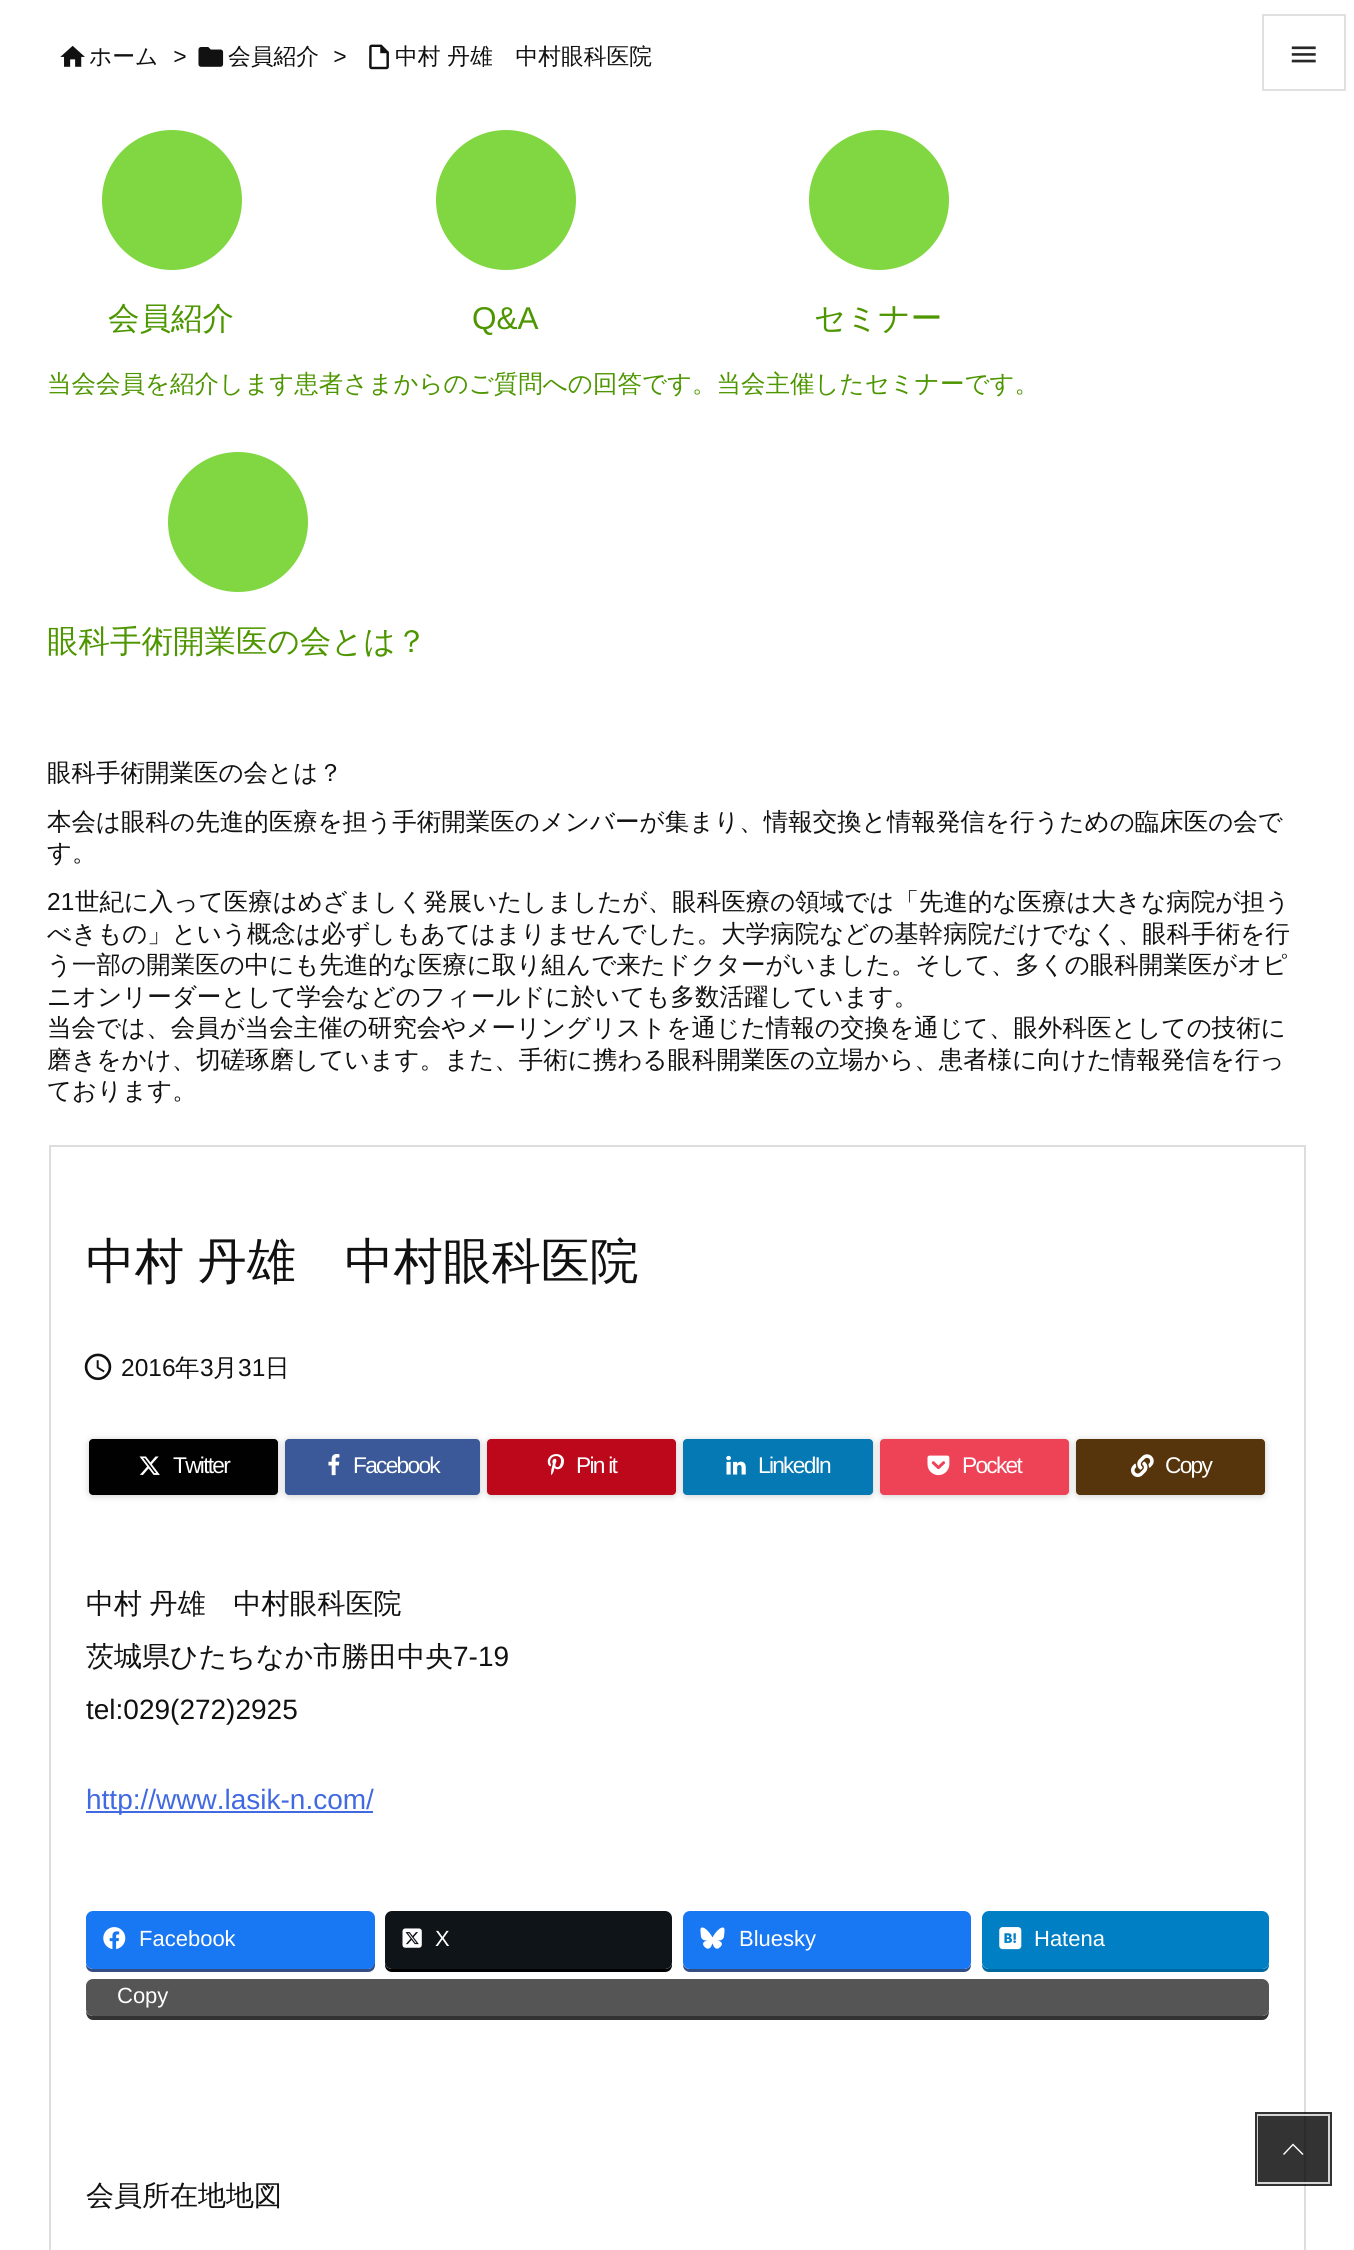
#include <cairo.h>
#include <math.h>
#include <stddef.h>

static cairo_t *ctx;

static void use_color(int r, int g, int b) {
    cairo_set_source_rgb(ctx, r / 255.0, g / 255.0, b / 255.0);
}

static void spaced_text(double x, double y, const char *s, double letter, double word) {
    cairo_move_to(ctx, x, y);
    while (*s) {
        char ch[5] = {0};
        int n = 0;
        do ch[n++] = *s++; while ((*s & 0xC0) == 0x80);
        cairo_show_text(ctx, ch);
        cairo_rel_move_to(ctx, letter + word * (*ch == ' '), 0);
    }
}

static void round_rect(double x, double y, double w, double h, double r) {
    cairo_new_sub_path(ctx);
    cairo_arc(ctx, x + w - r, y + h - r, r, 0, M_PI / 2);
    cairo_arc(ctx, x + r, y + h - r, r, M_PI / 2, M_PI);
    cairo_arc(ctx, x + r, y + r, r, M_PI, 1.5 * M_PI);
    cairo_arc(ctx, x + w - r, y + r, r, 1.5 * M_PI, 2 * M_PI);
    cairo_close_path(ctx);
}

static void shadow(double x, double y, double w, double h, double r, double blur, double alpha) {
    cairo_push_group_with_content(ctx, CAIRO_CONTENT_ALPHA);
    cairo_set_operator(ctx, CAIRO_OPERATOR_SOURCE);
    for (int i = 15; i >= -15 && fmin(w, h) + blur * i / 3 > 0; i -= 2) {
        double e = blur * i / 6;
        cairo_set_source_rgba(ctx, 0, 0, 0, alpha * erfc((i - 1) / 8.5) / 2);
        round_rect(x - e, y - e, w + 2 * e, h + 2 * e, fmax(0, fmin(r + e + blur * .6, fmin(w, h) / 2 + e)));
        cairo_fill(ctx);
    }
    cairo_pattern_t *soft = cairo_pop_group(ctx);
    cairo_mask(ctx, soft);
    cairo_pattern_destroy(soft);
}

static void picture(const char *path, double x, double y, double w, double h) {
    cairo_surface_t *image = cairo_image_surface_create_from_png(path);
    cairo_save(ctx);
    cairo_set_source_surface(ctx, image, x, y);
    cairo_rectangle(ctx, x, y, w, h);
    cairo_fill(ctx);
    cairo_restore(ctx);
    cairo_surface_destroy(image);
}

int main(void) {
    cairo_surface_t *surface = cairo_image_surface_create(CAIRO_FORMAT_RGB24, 1354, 2250);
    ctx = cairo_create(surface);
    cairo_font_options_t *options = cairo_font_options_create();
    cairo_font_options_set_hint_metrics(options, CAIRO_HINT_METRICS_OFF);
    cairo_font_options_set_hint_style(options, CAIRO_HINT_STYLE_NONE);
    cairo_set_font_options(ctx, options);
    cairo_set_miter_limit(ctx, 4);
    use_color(255, 255, 255);
    cairo_paint(ctx);
    picture("img1.png", 60, 45, 25, 22);
    cairo_select_font_face(ctx, "WenQuanYi Zen Hei Medium", CAIRO_FONT_SLANT_NORMAL, CAIRO_FONT_WEIGHT_NORMAL);
    cairo_set_font_size(ctx, 22.75);
    use_color(17, 17, 17);
    cairo_move_to(ctx, 89, 64);
    cairo_show_text(ctx, "ホーム");
    cairo_select_font_face(ctx, "Liberation Sans", CAIRO_FONT_SLANT_ITALIC, CAIRO_FONT_WEIGHT_NORMAL);
    cairo_move_to(ctx, 173, 64);
    cairo_show_text(ctx, ">");
    picture("img2.png", 198, 47, 26, 20);
    cairo_select_font_face(ctx, "WenQuanYi Zen Hei Medium", CAIRO_FONT_SLANT_NORMAL, CAIRO_FONT_WEIGHT_NORMAL);
    cairo_move_to(ctx, 228, 64);
    cairo_show_text(ctx, "会員紹介");
    cairo_select_font_face(ctx, "Liberation Sans", CAIRO_FONT_SLANT_ITALIC, CAIRO_FONT_WEIGHT_NORMAL);
    cairo_move_to(ctx, 333, 64);
    cairo_show_text(ctx, ">");
    picture("img3.png", 369, 44, 20, 26);
    cairo_select_font_face(ctx, "WenQuanYi Zen Hei Medium", CAIRO_FONT_SLANT_NORMAL, CAIRO_FONT_WEIGHT_NORMAL);
    cairo_move_to(ctx, 395, 64);
    cairo_show_text(ctx, "中村 丹雄　中村眼科医院");
    use_color(129, 215, 66);
    cairo_new_path(ctx);
    cairo_arc(ctx, 172, 200, 69, 0, 2 * M_PI);
    cairo_fill_preserve(ctx);
    cairo_stroke(ctx);
    cairo_set_font_size(ctx, 31.5);
    use_color(77, 150, 0);
    cairo_move_to(ctx, 108, 329);
    cairo_show_text(ctx, "会員紹介");
    cairo_set_font_size(ctx, 24.5);
    cairo_move_to(ctx, 47, 392);
    cairo_show_text(ctx, "当会会員を紹介します患者さまからのご質問への回答です。当会主催したセミナーです。");
    use_color(129, 215, 66);
    cairo_new_path(ctx);
    cairo_arc(ctx, 506, 200, 69, 0, 2 * M_PI);
    cairo_fill_preserve(ctx);
    cairo_stroke(ctx);
    cairo_select_font_face(ctx, "Liberation Sans", CAIRO_FONT_SLANT_NORMAL, CAIRO_FONT_WEIGHT_NORMAL);
    cairo_set_font_size(ctx, 31.5);
    use_color(77, 150, 0);
    cairo_move_to(ctx, 472, 329);
    cairo_show_text(ctx, "Q&A");
    use_color(129, 215, 66);
    cairo_new_path(ctx);
    cairo_arc(ctx, 879, 200, 69, 0, 2 * M_PI);
    cairo_fill_preserve(ctx);
    cairo_stroke(ctx);
    cairo_select_font_face(ctx, "WenQuanYi Zen Hei Medium", CAIRO_FONT_SLANT_NORMAL, CAIRO_FONT_WEIGHT_NORMAL);
    use_color(77, 150, 0);
    cairo_move_to(ctx, 814, 329);
    cairo_show_text(ctx, "セミナー");
    use_color(129, 215, 66);
    cairo_new_path(ctx);
    cairo_arc(ctx, 238, 522, 69, 0, 2 * M_PI);
    cairo_fill_preserve(ctx);
    cairo_stroke(ctx);
    use_color(77, 150, 0);
    cairo_move_to(ctx, 47, 652);
    cairo_show_text(ctx, "眼科手術開業医の会とは？");
    cairo_set_font_size(ctx, 24.5);
    use_color(17, 17, 17);
    cairo_move_to(ctx, 47, 781);
    cairo_show_text(ctx, "眼科手術開業医の会とは？");
    cairo_move_to(ctx, 47, 830);
    cairo_show_text(ctx, "本会は眼科の先進的医療を担う手術開業医のメンバーが集まり、情報交換と情報発信を行うための臨床医の会で");
    cairo_move_to(ctx, 47, 861);
    cairo_show_text(ctx, "す。");
    cairo_select_font_face(ctx, "Liberation Sans", CAIRO_FONT_SLANT_NORMAL, CAIRO_FONT_WEIGHT_NORMAL);
    cairo_move_to(ctx, 47, 910);
    cairo_show_text(ctx, "21");
    cairo_select_font_face(ctx, "WenQuanYi Zen Hei Medium", CAIRO_FONT_SLANT_NORMAL, CAIRO_FONT_WEIGHT_NORMAL);
    cairo_move_to(ctx, 75, 910);
    cairo_show_text(ctx, "世紀に入って医療はめざましく発展いたしましたが、眼科医療の領域では「先進的な医療は大きな病院が担う");
    cairo_move_to(ctx, 47, 942);
    cairo_show_text(ctx, "べきもの」という概念は必ずしもあてはまりませんでした。大学病院などの基幹病院だけでなく、眼科手術を行");
    cairo_move_to(ctx, 47, 973);
    cairo_show_text(ctx, "う一部の開業医の中にも先進的な医療に取り組んで来たドクターがいました。そして、多くの眼科開業医がオピ");
    cairo_move_to(ctx, 47, 1005);
    cairo_show_text(ctx, "ニオンリーダーとして学会などのフィールドに於いても多数活躍しています。");
    cairo_move_to(ctx, 47, 1036);
    cairo_show_text(ctx, "当会では、会員が当会主催の研究会やメーリングリストを通じた情報の交換を通じて、眼外科医としての技術に");
    cairo_move_to(ctx, 47, 1068);
    cairo_show_text(ctx, "磨きをかけ、切磋琢磨しています。また、手術に携わる眼科開業医の立場から、患者様に向けた情報発信を行っ");
    cairo_move_to(ctx, 47, 1099);
    cairo_show_text(ctx, "ております。");
    cairo_rectangle(ctx, 50, 1146, 1255, 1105);
    use_color(221, 221, 221);
    cairo_stroke(ctx);
    cairo_set_font_size(ctx, 49);
    use_color(17, 17, 17);
    spaced_text(86, 1278, "中村 丹雄　中村眼科医院", 0, -1);
    picture("img4.png", 84, 1353, 28, 28);
    cairo_select_font_face(ctx, "Liberation Sans", CAIRO_FONT_SLANT_NORMAL, CAIRO_FONT_WEIGHT_NORMAL);
    cairo_set_font_size(ctx, 24.5);
    cairo_move_to(ctx, 121, 1376);
    cairo_show_text(ctx, "2016");
    cairo_select_font_face(ctx, "WenQuanYi Zen Hei Medium", CAIRO_FONT_SLANT_NORMAL, CAIRO_FONT_WEIGHT_NORMAL);
    cairo_move_to(ctx, 175, 1376);
    cairo_show_text(ctx, "年");
    cairo_select_font_face(ctx, "Liberation Sans", CAIRO_FONT_SLANT_NORMAL, CAIRO_FONT_WEIGHT_NORMAL);
    cairo_move_to(ctx, 200, 1376);
    cairo_show_text(ctx, "3");
    cairo_select_font_face(ctx, "WenQuanYi Zen Hei Medium", CAIRO_FONT_SLANT_NORMAL, CAIRO_FONT_WEIGHT_NORMAL);
    cairo_move_to(ctx, 213, 1376);
    cairo_show_text(ctx, "月");
    cairo_select_font_face(ctx, "Liberation Sans", CAIRO_FONT_SLANT_NORMAL, CAIRO_FONT_WEIGHT_NORMAL);
    cairo_move_to(ctx, 238, 1376);
    cairo_show_text(ctx, "31");
    cairo_select_font_face(ctx, "WenQuanYi Zen Hei Medium", CAIRO_FONT_SLANT_NORMAL, CAIRO_FONT_WEIGHT_NORMAL);
    cairo_move_to(ctx, 265, 1376);
    cairo_show_text(ctx, "日");
    use_color(0, 0, 0);
    shadow(89, 1440, 189, 56, 4, 3.5, 0.2);
    use_color(1, 1, 1);
    round_rect(89, 1439, 189, 56, 4);
    cairo_fill(ctx);
    picture("img5.png", 139, 1456, 21, 19);
    cairo_select_font_face(ctx, "Liberation Sans", CAIRO_FONT_SLANT_NORMAL, CAIRO_FONT_WEIGHT_NORMAL);
    cairo_set_font_size(ctx, 22.75);
    use_color(255, 255, 255);
    spaced_text(173, 1473, "Twitter", -1.75, 0);
    use_color(0, 0, 0);
    shadow(285, 1440, 195, 56, 4, 3.5, 0.2);
    use_color(59, 89, 152);
    round_rect(285, 1439, 195, 56, 4);
    cairo_fill(ctx);
    picture("img6.png", 328, 1454, 12, 22);
    use_color(255, 255, 255);
    spaced_text(353, 1473, "Facebook", -1.75, 0);
    use_color(0, 0, 0);
    shadow(487, 1440, 189, 56, 4, 3.5, 0.2);
    use_color(189, 8, 28);
    round_rect(487, 1439, 189, 56, 4);
    cairo_fill(ctx);
    picture("img7.png", 547, 1454, 17, 22);
    use_color(255, 255, 255);
    spaced_text(576, 1473, "Pin it", -1.75, 0);
    use_color(0, 0, 0);
    shadow(683, 1440, 190, 56, 4, 3.5, 0.2);
    use_color(4, 121, 180);
    round_rect(683, 1439, 190, 56, 4);
    cairo_fill(ctx);
    picture("img8.png", 726, 1455, 20, 20);
    use_color(255, 255, 255);
    spaced_text(758, 1473, "LinkedIn", -1.75, 0);
    use_color(0, 0, 0);
    shadow(880, 1440, 189, 56, 4, 3.5, 0.2);
    use_color(238, 66, 87);
    round_rect(880, 1439, 189, 56, 4);
    cairo_fill(ctx);
    picture("img9.png", 927, 1455, 23, 21);
    use_color(255, 255, 255);
    spaced_text(962, 1473, "Pocket", -1.75, 0);
    use_color(0, 0, 0);
    shadow(1076, 1440, 189, 56, 4, 3.5, 0.2);
    use_color(86, 53, 13);
    round_rect(1076, 1439, 189, 56, 4);
    cairo_fill(ctx);
    picture("img10.png", 1131, 1454, 23, 24);
    use_color(255, 255, 255);
    spaced_text(1165, 1473, "Copy", -1.75, 0);
    cairo_select_font_face(ctx, "WenQuanYi Zen Hei Medium", CAIRO_FONT_SLANT_NORMAL, CAIRO_FONT_WEIGHT_NORMAL);
    cairo_set_font_size(ctx, 28);
    use_color(17, 17, 17);
    spaced_text(86, 1613, "中村 丹雄　中村眼科医院", 0, -1);
    cairo_move_to(ctx, 86, 1666);
    cairo_show_text(ctx, "茨城県ひたちなか市勝田中央");
    cairo_select_font_face(ctx, "Liberation Sans", CAIRO_FONT_SLANT_NORMAL, CAIRO_FONT_WEIGHT_NORMAL);
    cairo_move_to(ctx, 453, 1666);
    cairo_show_text(ctx, "7-19");
    cairo_move_to(ctx, 86, 1719);
    cairo_show_text(ctx, "tel:029(272)2925");
    use_color(65, 105, 225);
    cairo_rectangle(ctx, 86, 1811, 287, 2);
    cairo_fill(ctx);
    cairo_move_to(ctx, 86, 1809);
    cairo_show_text(ctx, "http://www.lasik-n.com/");
    use_color(52, 78, 132);
    cairo_new_path(ctx);
    cairo_move_to(ctx, 86, 1964);
    cairo_line_to(ctx, 86, 1965);
    cairo_curve_to(ctx, 86, 1969, 89, 1972, 93, 1972);
    cairo_line_to(ctx, 368, 1972);
    cairo_curve_to(ctx, 372, 1972, 375, 1969, 375, 1965);
    cairo_line_to(ctx, 375, 1922);
    cairo_line_to(ctx, 374, 1919);
    cairo_line_to(ctx, 374, 1962);
    cairo_curve_to(ctx, 374, 1966, 371, 1969, 368, 1969);
    cairo_line_to(ctx, 93, 1969);
    cairo_curve_to(ctx, 90, 1969, 87, 1967, 86, 1964);
    cairo_close_path(ctx);
    cairo_fill(ctx);
    use_color(24, 119, 242);
    round_rect(86, 1911, 289, 58, 7);
    cairo_fill(ctx);
    picture("img11.png", 103, 1927, 23, 23);
    cairo_set_font_size(ctx, 22);
    use_color(255, 255, 255);
    cairo_move_to(ctx, 139, 1946);
    cairo_show_text(ctx, "Facebook");
    use_color(0, 0, 0);
    cairo_new_path(ctx);
    cairo_move_to(ctx, 385, 1962);
    cairo_line_to(ctx, 385, 1965);
    cairo_curve_to(ctx, 385, 1969, 388, 1972, 392, 1972);
    cairo_line_to(ctx, 665, 1972);
    cairo_curve_to(ctx, 669, 1972, 672, 1969, 672, 1965);
    cairo_line_to(ctx, 672, 1962);
    cairo_curve_to(ctx, 672, 1966, 669, 1969, 665, 1969);
    cairo_line_to(ctx, 392, 1969);
    cairo_curve_to(ctx, 388, 1969, 385, 1966, 385, 1962);
    cairo_close_path(ctx);
    cairo_fill(ctx);
    use_color(15, 20, 25);
    round_rect(385, 1911, 287, 58, 7);
    cairo_fill(ctx);
    picture("img12.png", 402, 1928, 20, 20);
    use_color(255, 255, 255);
    cairo_move_to(ctx, 435, 1946);
    cairo_show_text(ctx, "X");
    use_color(52, 78, 132);
    cairo_new_path(ctx);
    cairo_move_to(ctx, 683, 1964);
    cairo_line_to(ctx, 683, 1965);
    cairo_curve_to(ctx, 683, 1969, 686, 1972, 690, 1972);
    cairo_line_to(ctx, 964, 1972);
    cairo_curve_to(ctx, 968, 1972, 971, 1969, 971, 1965);
    cairo_line_to(ctx, 971, 1964);
    cairo_curve_to(ctx, 970, 1967, 967, 1969, 964, 1969);
    cairo_line_to(ctx, 690, 1969);
    cairo_curve_to(ctx, 687, 1969, 684, 1967, 683, 1964);
    cairo_close_path(ctx);
    cairo_fill(ctx);
    use_color(24, 119, 242);
    round_rect(683, 1911, 288, 58, 7);
    cairo_fill(ctx);
    picture("img13.png", 700, 1927, 25, 22);
    use_color(255, 255, 255);
    cairo_move_to(ctx, 739, 1946);
    cairo_show_text(ctx, "Bluesky");
    use_color(0, 103, 159);
    cairo_new_path(ctx);
    cairo_move_to(ctx, 982, 1964);
    cairo_line_to(ctx, 982, 1965);
    cairo_curve_to(ctx, 982, 1969, 985, 1972, 989, 1972);
    cairo_line_to(ctx, 1262, 1972);
    cairo_curve_to(ctx, 1266, 1972, 1269, 1969, 1269, 1965);
    cairo_line_to(ctx, 1269, 1920);
    cairo_line_to(ctx, 1269, 1962);
    cairo_curve_to(ctx, 1269, 1966, 1266, 1969, 1262, 1969);
    cairo_line_to(ctx, 989, 1969);
    cairo_curve_to(ctx, 986, 1969, 983, 1967, 982, 1964);
    cairo_close_path(ctx);
    cairo_fill(ctx);
    use_color(0, 127, 197);
    round_rect(982, 1911, 287, 58, 7);
    cairo_fill(ctx);
    picture("img14.png", 999, 1927, 23, 23);
    use_color(255, 255, 255);
    cairo_move_to(ctx, 1034, 1946);
    cairo_show_text(ctx, "Hatena");
    cairo_save(ctx);
    cairo_rectangle(ctx, 86, 1911, 1183, 110);
    cairo_clip(ctx);
    use_color(51, 51, 51);
    cairo_new_path(ctx);
    cairo_move_to(ctx, 86, 2011);
    cairo_curve_to(ctx, 86, 2015, 88, 2020, 93, 2020);
    cairo_line_to(ctx, 1262, 2020);
    cairo_curve_to(ctx, 1271, 2020, 1269, 2007, 1269, 2002);
    cairo_line_to(ctx, 1269, 1988);
    cairo_line_to(ctx, 1269, 2009);
    cairo_curve_to(ctx, 1269, 2013, 1266, 2016, 1262, 2016);
    cairo_line_to(ctx, 93, 2016);
    cairo_curve_to(ctx, 90, 2016, 87, 2014, 86, 2011);
    cairo_close_path(ctx);
    cairo_fill(ctx);
    cairo_restore(ctx);
    use_color(85, 85, 85);
    round_rect(86, 1979, 1183, 37, 7);
    cairo_fill(ctx);
    use_color(255, 255, 255);
    cairo_move_to(ctx, 117, 2003);
    cairo_show_text(ctx, "Copy");
    cairo_select_font_face(ctx, "WenQuanYi Zen Hei Medium", CAIRO_FONT_SLANT_NORMAL, CAIRO_FONT_WEIGHT_NORMAL);
    cairo_set_font_size(ctx, 28);
    use_color(17, 17, 17);
    cairo_move_to(ctx, 86, 2205);
    cairo_show_text(ctx, "会員所在地地図");
    cairo_rectangle(ctx, 1263, 15, 82, 75);
    use_color(224, 224, 224);
    cairo_stroke(ctx);
    picture("img15.png", 1291, 46, 25, 17);
    cairo_rectangle(ctx, 1257, 2114, 73, 70);
    cairo_set_source_rgba(ctx, 0, 0, 0, 0.8);
    cairo_set_line_width(ctx, 4);
    cairo_stroke(ctx);
    cairo_rectangle(ctx, 1258, 2115, 71, 68);
    cairo_set_source_rgba(ctx, 1, 1, 1, 0.8);
    cairo_set_line_width(ctx, 2);
    cairo_stroke(ctx);
    cairo_set_source_rgba(ctx, 0, 0, 0, 0.8);
    cairo_rectangle(ctx, 1258, 2116, 70, 66);
    cairo_fill(ctx);
    use_color(255, 255, 255);
    cairo_new_path(ctx);
    cairo_move_to(ctx, 1303.5, 2154);
    cairo_line_to(ctx, 1302.5, 2155);
    cairo_line_to(ctx, 1293, 2145.5);
    cairo_line_to(ctx, 1284, 2155);
    cairo_line_to(ctx, 1283, 2154);
    cairo_line_to(ctx, 1293, 2143.5);
    cairo_close_path(ctx);
    cairo_fill(ctx);
    cairo_surface_write_to_png(surface, "result.png");
    cairo_font_options_destroy(options);
    cairo_destroy(ctx);
    cairo_surface_destroy(surface);
    return 0;
}
